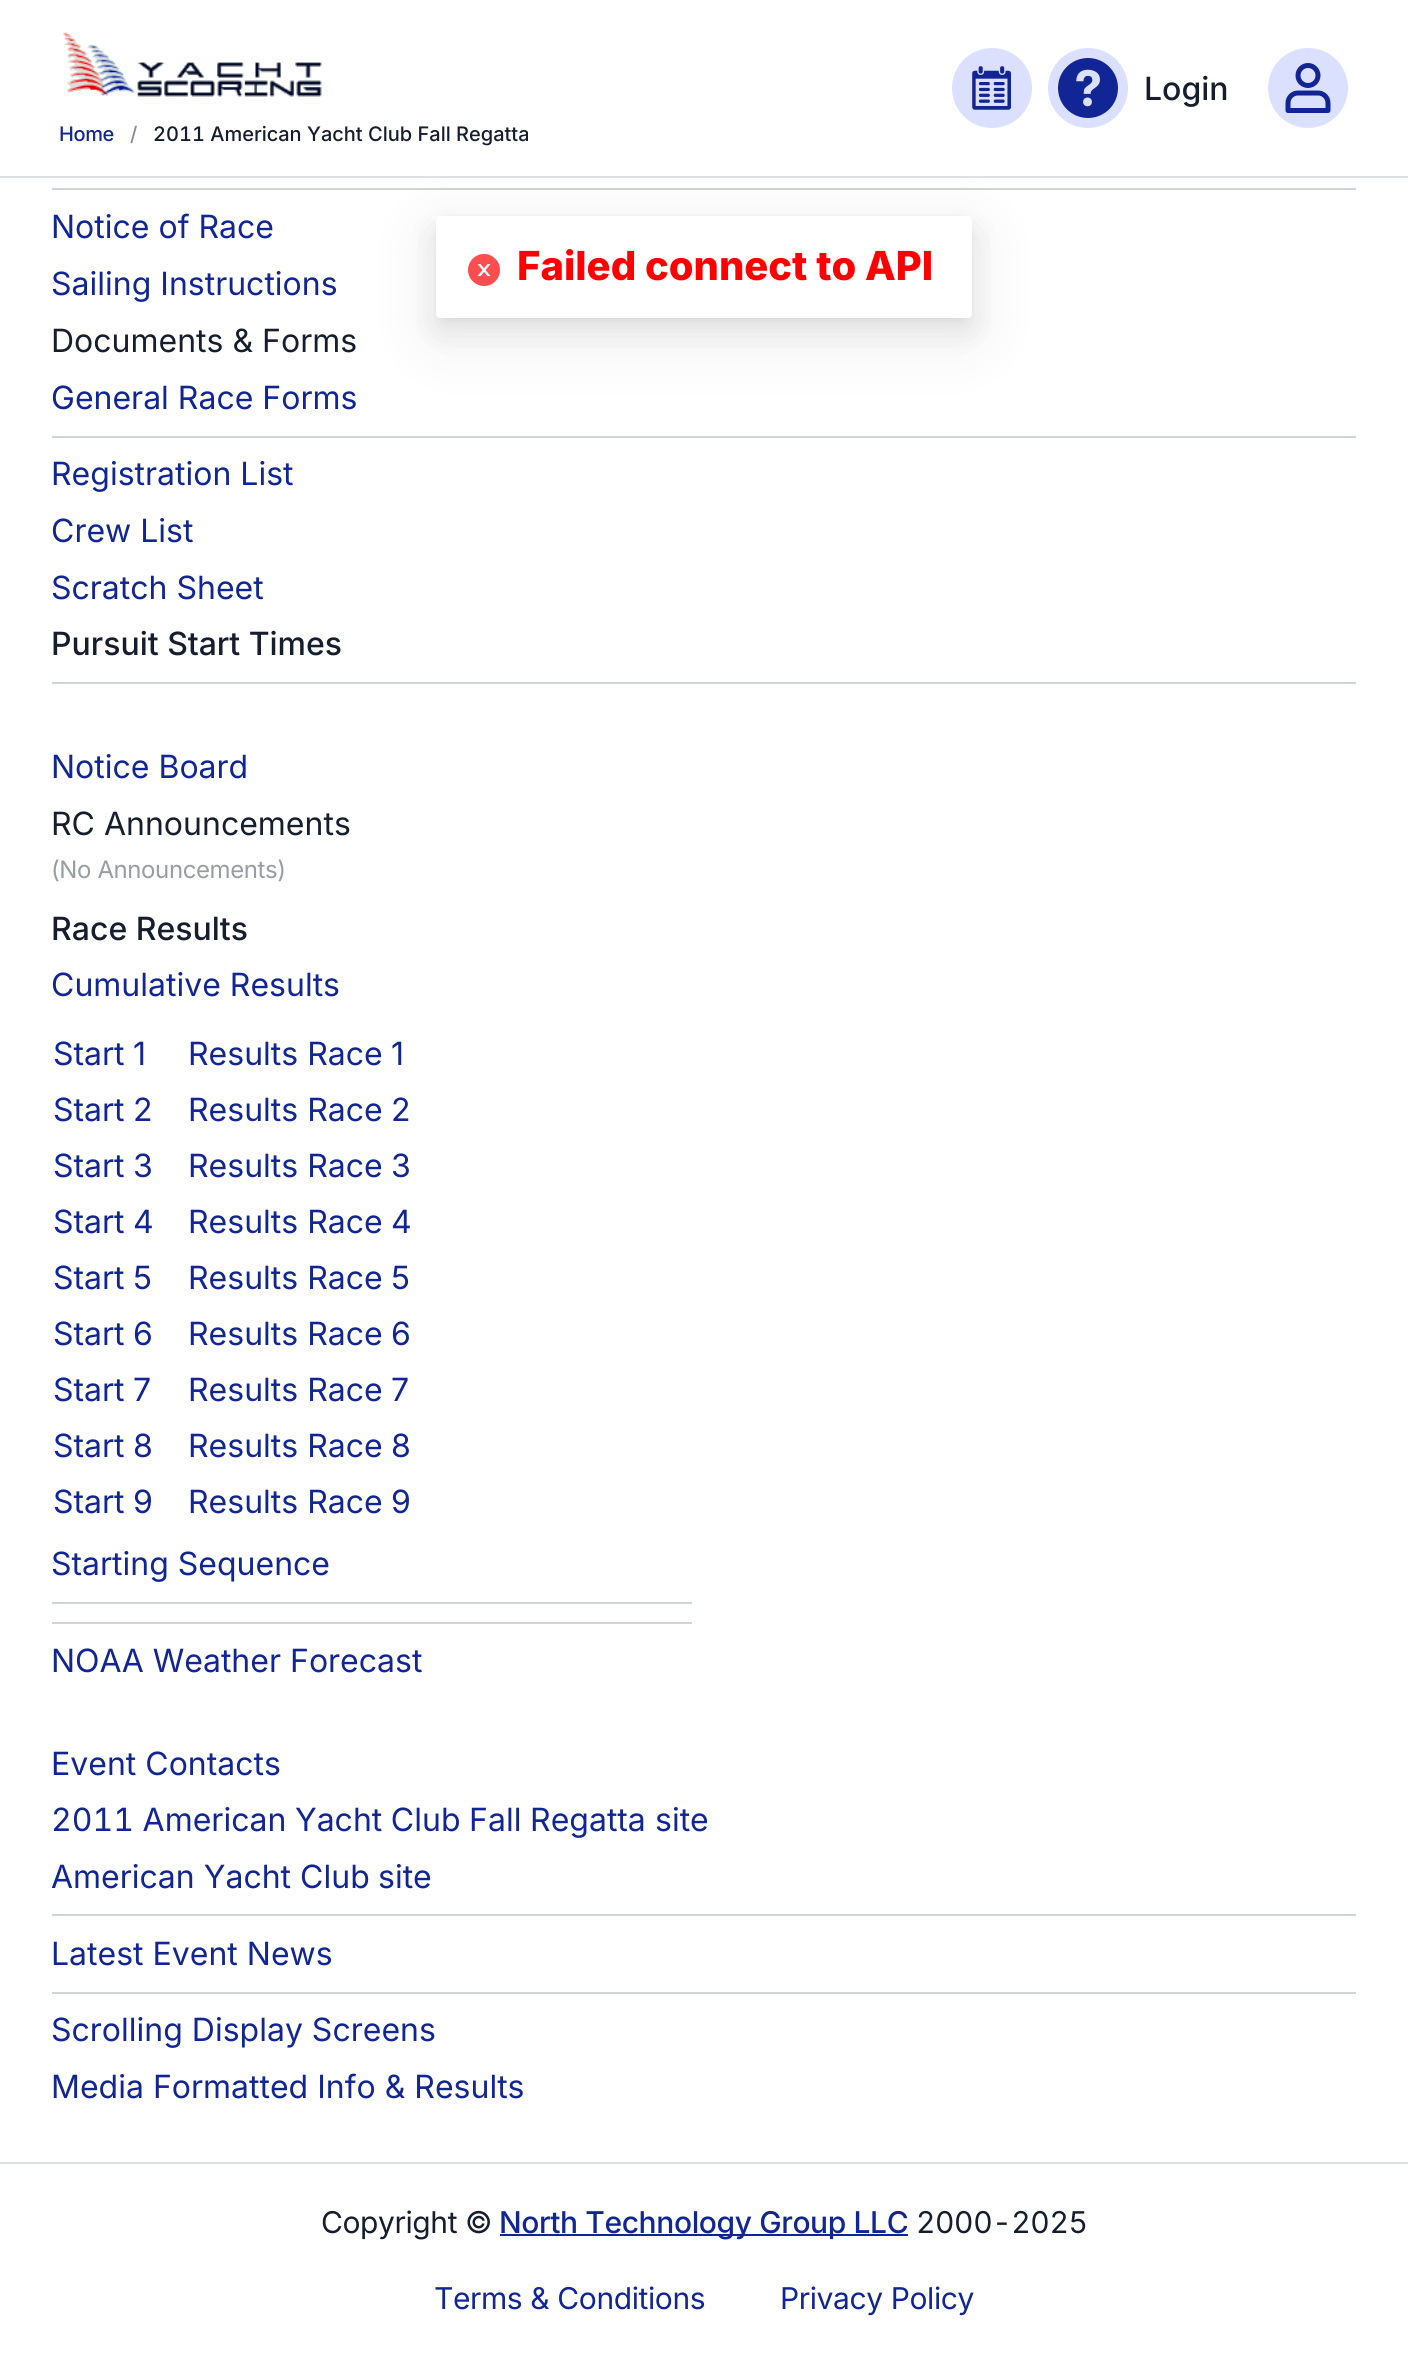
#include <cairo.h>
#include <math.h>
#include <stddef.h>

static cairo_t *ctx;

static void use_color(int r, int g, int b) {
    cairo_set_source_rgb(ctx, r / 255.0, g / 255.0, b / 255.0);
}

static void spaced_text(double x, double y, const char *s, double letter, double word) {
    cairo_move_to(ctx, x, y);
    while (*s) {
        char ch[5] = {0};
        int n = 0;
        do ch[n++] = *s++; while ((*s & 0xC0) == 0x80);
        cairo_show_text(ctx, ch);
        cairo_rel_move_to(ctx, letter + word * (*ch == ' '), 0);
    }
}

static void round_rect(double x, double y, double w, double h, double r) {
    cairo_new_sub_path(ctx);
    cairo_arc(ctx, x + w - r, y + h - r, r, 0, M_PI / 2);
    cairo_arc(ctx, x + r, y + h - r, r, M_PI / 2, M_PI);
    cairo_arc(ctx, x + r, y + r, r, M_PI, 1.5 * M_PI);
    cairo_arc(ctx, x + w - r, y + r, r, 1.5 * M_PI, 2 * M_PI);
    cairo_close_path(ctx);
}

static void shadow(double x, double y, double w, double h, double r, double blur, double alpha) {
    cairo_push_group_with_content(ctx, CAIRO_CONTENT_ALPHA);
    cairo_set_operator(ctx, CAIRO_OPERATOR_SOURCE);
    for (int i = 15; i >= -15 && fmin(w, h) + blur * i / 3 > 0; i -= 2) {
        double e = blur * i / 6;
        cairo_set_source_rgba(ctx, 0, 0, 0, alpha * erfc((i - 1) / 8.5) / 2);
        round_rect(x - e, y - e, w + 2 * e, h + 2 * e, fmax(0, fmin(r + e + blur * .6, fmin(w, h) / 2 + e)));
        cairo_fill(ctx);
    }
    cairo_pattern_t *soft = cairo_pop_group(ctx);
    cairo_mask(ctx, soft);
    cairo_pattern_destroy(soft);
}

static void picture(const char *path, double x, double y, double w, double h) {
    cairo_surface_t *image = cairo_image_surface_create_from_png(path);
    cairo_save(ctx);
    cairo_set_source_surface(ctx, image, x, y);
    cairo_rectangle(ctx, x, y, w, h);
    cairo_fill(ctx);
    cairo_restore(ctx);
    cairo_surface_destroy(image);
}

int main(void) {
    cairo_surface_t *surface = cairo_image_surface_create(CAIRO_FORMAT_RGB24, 1408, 2356);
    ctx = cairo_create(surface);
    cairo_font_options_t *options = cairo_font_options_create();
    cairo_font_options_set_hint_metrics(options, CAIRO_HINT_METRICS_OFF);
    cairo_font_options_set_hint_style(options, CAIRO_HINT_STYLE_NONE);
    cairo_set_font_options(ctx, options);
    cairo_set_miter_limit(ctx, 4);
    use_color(255, 255, 255);
    cairo_paint(ctx);
    use_color(221, 225, 227);
    cairo_rectangle(ctx, 0, 176, 1408, 2);
    cairo_fill(ctx);
    use_color(219, 224, 255);
    cairo_arc(ctx, 992, 88, 40, 0, 2 * M_PI);
    cairo_fill(ctx);
    picture("img1.png", 972, 66, 39, 44);
    cairo_arc(ctx, 1088, 88, 40, 0, 2 * M_PI);
    cairo_fill(ctx);
    picture("img2.png", 1058, 58, 60, 60);
    cairo_select_font_face(ctx, "Inter Medium", CAIRO_FONT_SLANT_NORMAL, CAIRO_FONT_WEIGHT_NORMAL);
    cairo_set_font_size(ctx, 32);
    use_color(22, 30, 46);
    cairo_move_to(ctx, 1144, 100);
    cairo_show_text(ctx, "Login");
    use_color(219, 224, 255);
    cairo_new_path(ctx);
    cairo_arc(ctx, 1308, 88, 40, 0, 2 * M_PI);
    cairo_fill(ctx);
    picture("img3.png", 1285, 63, 46, 50);
    picture("img4.png", 63, 32, 259, 65);
    cairo_set_font_size(ctx, 20);
    use_color(17, 37, 149);
    spaced_text(59, 141, "Home", -0.4, 0);
    use_color(140, 140, 140);
    cairo_move_to(ctx, 130, 141);
    cairo_show_text(ctx, "/");
    cairo_select_font_face(ctx, "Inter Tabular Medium", CAIRO_FONT_SLANT_NORMAL, CAIRO_FONT_WEIGHT_NORMAL);
    use_color(22, 30, 46);
    cairo_move_to(ctx, 153, 141);
    cairo_show_text(ctx, "2011 American Yacht Club Fall Regatta");
    use_color(208, 212, 213);
    cairo_rectangle(ctx, 52, 188, 1304, 2);
    cairo_fill(ctx);
    cairo_select_font_face(ctx, "Inter", CAIRO_FONT_SLANT_NORMAL, CAIRO_FONT_WEIGHT_NORMAL);
    cairo_set_font_size(ctx, 32);
    use_color(17, 37, 149);
    cairo_move_to(ctx, 51, 238);
    cairo_show_text(ctx, "Notice of Race");
    cairo_move_to(ctx, 51, 295);
    cairo_show_text(ctx, "Sailing Instructions");
    use_color(22, 30, 46);
    cairo_move_to(ctx, 51, 352);
    cairo_show_text(ctx, "Documents & Forms");
    use_color(17, 37, 149);
    cairo_move_to(ctx, 51, 409);
    cairo_show_text(ctx, "General Race Forms");
    use_color(208, 212, 213);
    cairo_rectangle(ctx, 52, 436, 1304, 2);
    cairo_fill(ctx);
    use_color(17, 37, 149);
    cairo_move_to(ctx, 51, 485);
    cairo_show_text(ctx, "Registration List");
    cairo_move_to(ctx, 51, 542);
    cairo_show_text(ctx, "Crew List");
    cairo_move_to(ctx, 51, 599);
    cairo_show_text(ctx, "Scratch Sheet");
    cairo_select_font_face(ctx, "Inter Medium", CAIRO_FONT_SLANT_NORMAL, CAIRO_FONT_WEIGHT_NORMAL);
    use_color(22, 30, 46);
    cairo_move_to(ctx, 51, 655);
    cairo_show_text(ctx, "Pursuit Start Times");
    use_color(208, 212, 213);
    cairo_rectangle(ctx, 52, 682, 1304, 2);
    cairo_fill(ctx);
    cairo_select_font_face(ctx, "Inter", CAIRO_FONT_SLANT_NORMAL, CAIRO_FONT_WEIGHT_NORMAL);
    use_color(17, 37, 149);
    cairo_move_to(ctx, 51, 778);
    cairo_show_text(ctx, "Notice Board");
    use_color(22, 30, 46);
    cairo_move_to(ctx, 51, 835);
    cairo_show_text(ctx, "RC Announcements");
    cairo_set_font_size(ctx, 24);
    use_color(151, 157, 162);
    spaced_text(51, 878, "(No Announcements)", -0.4, 0);
    cairo_select_font_face(ctx, "Inter Medium", CAIRO_FONT_SLANT_NORMAL, CAIRO_FONT_WEIGHT_NORMAL);
    cairo_set_font_size(ctx, 32);
    use_color(22, 30, 46);
    cairo_move_to(ctx, 51, 940);
    cairo_show_text(ctx, "Race Results");
    cairo_select_font_face(ctx, "Inter", CAIRO_FONT_SLANT_NORMAL, CAIRO_FONT_WEIGHT_NORMAL);
    use_color(17, 37, 149);
    cairo_move_to(ctx, 51, 996);
    cairo_show_text(ctx, "Cumulative Results");
    cairo_move_to(ctx, 53, 1065);
    cairo_show_text(ctx, "Start");
    cairo_move_to(ctx, 133, 1065);
    cairo_show_text(ctx, "1");
    cairo_move_to(ctx, 188, 1065);
    cairo_show_text(ctx, "Results Race");
    cairo_move_to(ctx, 391, 1065);
    cairo_show_text(ctx, "1");
    cairo_move_to(ctx, 53, 1121);
    cairo_show_text(ctx, "Start");
    cairo_move_to(ctx, 133, 1121);
    cairo_show_text(ctx, "2");
    cairo_move_to(ctx, 188, 1121);
    cairo_show_text(ctx, "Results Race");
    cairo_move_to(ctx, 391, 1121);
    cairo_show_text(ctx, "2");
    cairo_move_to(ctx, 53, 1177);
    cairo_show_text(ctx, "Start");
    cairo_move_to(ctx, 133, 1177);
    cairo_show_text(ctx, "3");
    cairo_move_to(ctx, 188, 1177);
    cairo_show_text(ctx, "Results Race");
    cairo_move_to(ctx, 391, 1177);
    cairo_show_text(ctx, "3");
    cairo_move_to(ctx, 53, 1233);
    cairo_show_text(ctx, "Start");
    cairo_move_to(ctx, 133, 1233);
    cairo_show_text(ctx, "4");
    cairo_move_to(ctx, 188, 1233);
    cairo_show_text(ctx, "Results Race");
    cairo_move_to(ctx, 391, 1233);
    cairo_show_text(ctx, "4");
    cairo_move_to(ctx, 53, 1289);
    cairo_show_text(ctx, "Start");
    cairo_move_to(ctx, 133, 1289);
    cairo_show_text(ctx, "5");
    cairo_move_to(ctx, 188, 1289);
    cairo_show_text(ctx, "Results Race");
    cairo_move_to(ctx, 391, 1289);
    cairo_show_text(ctx, "5");
    cairo_move_to(ctx, 53, 1345);
    cairo_show_text(ctx, "Start");
    cairo_move_to(ctx, 133, 1345);
    cairo_show_text(ctx, "6");
    cairo_move_to(ctx, 188, 1345);
    cairo_show_text(ctx, "Results Race");
    cairo_move_to(ctx, 391, 1345);
    cairo_show_text(ctx, "6");
    cairo_move_to(ctx, 53, 1401);
    cairo_show_text(ctx, "Start");
    cairo_move_to(ctx, 133, 1401);
    cairo_show_text(ctx, "7");
    cairo_move_to(ctx, 188, 1401);
    cairo_show_text(ctx, "Results Race");
    cairo_move_to(ctx, 391, 1401);
    cairo_show_text(ctx, "7");
    cairo_move_to(ctx, 53, 1457);
    cairo_show_text(ctx, "Start");
    cairo_move_to(ctx, 133, 1457);
    cairo_show_text(ctx, "8");
    cairo_move_to(ctx, 188, 1457);
    cairo_show_text(ctx, "Results Race");
    cairo_move_to(ctx, 391, 1457);
    cairo_show_text(ctx, "8");
    cairo_move_to(ctx, 53, 1513);
    cairo_show_text(ctx, "Start");
    cairo_move_to(ctx, 133, 1513);
    cairo_show_text(ctx, "9");
    cairo_move_to(ctx, 188, 1513);
    cairo_show_text(ctx, "Results Race");
    cairo_move_to(ctx, 391, 1513);
    cairo_show_text(ctx, "9");
    cairo_move_to(ctx, 51, 1575);
    cairo_show_text(ctx, "Starting Sequence");
    use_color(208, 212, 213);
    cairo_rectangle(ctx, 52, 1602, 640, 2);
    cairo_fill(ctx);
    cairo_rectangle(ctx, 52, 1622, 640, 2);
    cairo_fill(ctx);
    use_color(17, 37, 149);
    cairo_move_to(ctx, 51, 1672);
    cairo_show_text(ctx, "NOAA Weather Forecast");
    cairo_move_to(ctx, 51, 1775);
    cairo_show_text(ctx, "Event Contacts");
    cairo_select_font_face(ctx, "Inter Tabular", CAIRO_FONT_SLANT_NORMAL, CAIRO_FONT_WEIGHT_NORMAL);
    cairo_move_to(ctx, 51, 1831);
    cairo_show_text(ctx, "2011 American Yacht Club Fall Regatta");
    cairo_select_font_face(ctx, "Inter", CAIRO_FONT_SLANT_NORMAL, CAIRO_FONT_WEIGHT_NORMAL);
    cairo_move_to(ctx, 655, 1831);
    cairo_show_text(ctx, "site");
    cairo_move_to(ctx, 51, 1888);
    cairo_show_text(ctx, "American Yacht Club");
    cairo_move_to(ctx, 378, 1888);
    cairo_show_text(ctx, "site");
    use_color(208, 212, 213);
    cairo_rectangle(ctx, 52, 1914, 1304, 2);
    cairo_fill(ctx);
    use_color(17, 37, 149);
    cairo_move_to(ctx, 51, 1965);
    cairo_show_text(ctx, "Latest Event News");
    use_color(208, 212, 213);
    cairo_rectangle(ctx, 52, 1992, 1304, 2);
    cairo_fill(ctx);
    use_color(17, 37, 149);
    cairo_move_to(ctx, 51, 2041);
    cairo_show_text(ctx, "Scrolling Display Screens");
    cairo_move_to(ctx, 51, 2098);
    cairo_show_text(ctx, "Media Formatted Info & Results");
    use_color(221, 225, 227);
    cairo_rectangle(ctx, 0, 2162, 1408, 2);
    cairo_fill(ctx);
    cairo_set_font_size(ctx, 30);
    use_color(22, 30, 46);
    spaced_text(321, 2233, "Copyright ©", -0.4, 0);
    use_color(17, 37, 149);
    cairo_rectangle(ctx, 500, 2234, 408, 2);
    cairo_fill(ctx);
    cairo_select_font_face(ctx, "Inter Medium", CAIRO_FONT_SLANT_NORMAL, CAIRO_FONT_WEIGHT_NORMAL);
    spaced_text(499, 2233, "North Technology Group LLC", -0.4, 0);
    cairo_select_font_face(ctx, "Inter Tabular", CAIRO_FONT_SLANT_NORMAL, CAIRO_FONT_WEIGHT_NORMAL);
    use_color(22, 30, 46);
    spaced_text(916, 2233, "2000-2025", -0.4, 0);
    cairo_select_font_face(ctx, "Inter", CAIRO_FONT_SLANT_NORMAL, CAIRO_FONT_WEIGHT_NORMAL);
    use_color(17, 37, 149);
    spaced_text(434, 2309, "Terms & Conditions", -0.4, 0);
    spaced_text(780, 2309, "Privacy Policy", -0.4, 0);
    use_color(0, 0, 0);
    shadow(420, 218, 568, 134, 20, 28, 0.05);
    shadow(436, 228, 536, 102, 4, 16, 0.08);
    shadow(444, 230, 520, 86, 0, 6, 0.12);
    use_color(255, 255, 255);
    round_rect(436, 216, 536, 102, 4);
    cairo_fill(ctx);
    picture("img5.png", 468, 254, 32, 32);
    cairo_select_font_face(ctx, "Inter ExtraBold", CAIRO_FONT_SLANT_NORMAL, CAIRO_FONT_WEIGHT_NORMAL);
    cairo_set_font_size(ctx, 40);
    use_color(255, 0, 0);
    cairo_move_to(ctx, 517, 280);
    cairo_show_text(ctx, "Failed connect to API");
    cairo_surface_write_to_png(surface, "result.png");
    cairo_font_options_destroy(options);
    cairo_destroy(ctx);
    cairo_surface_destroy(surface);
    return 0;
}
